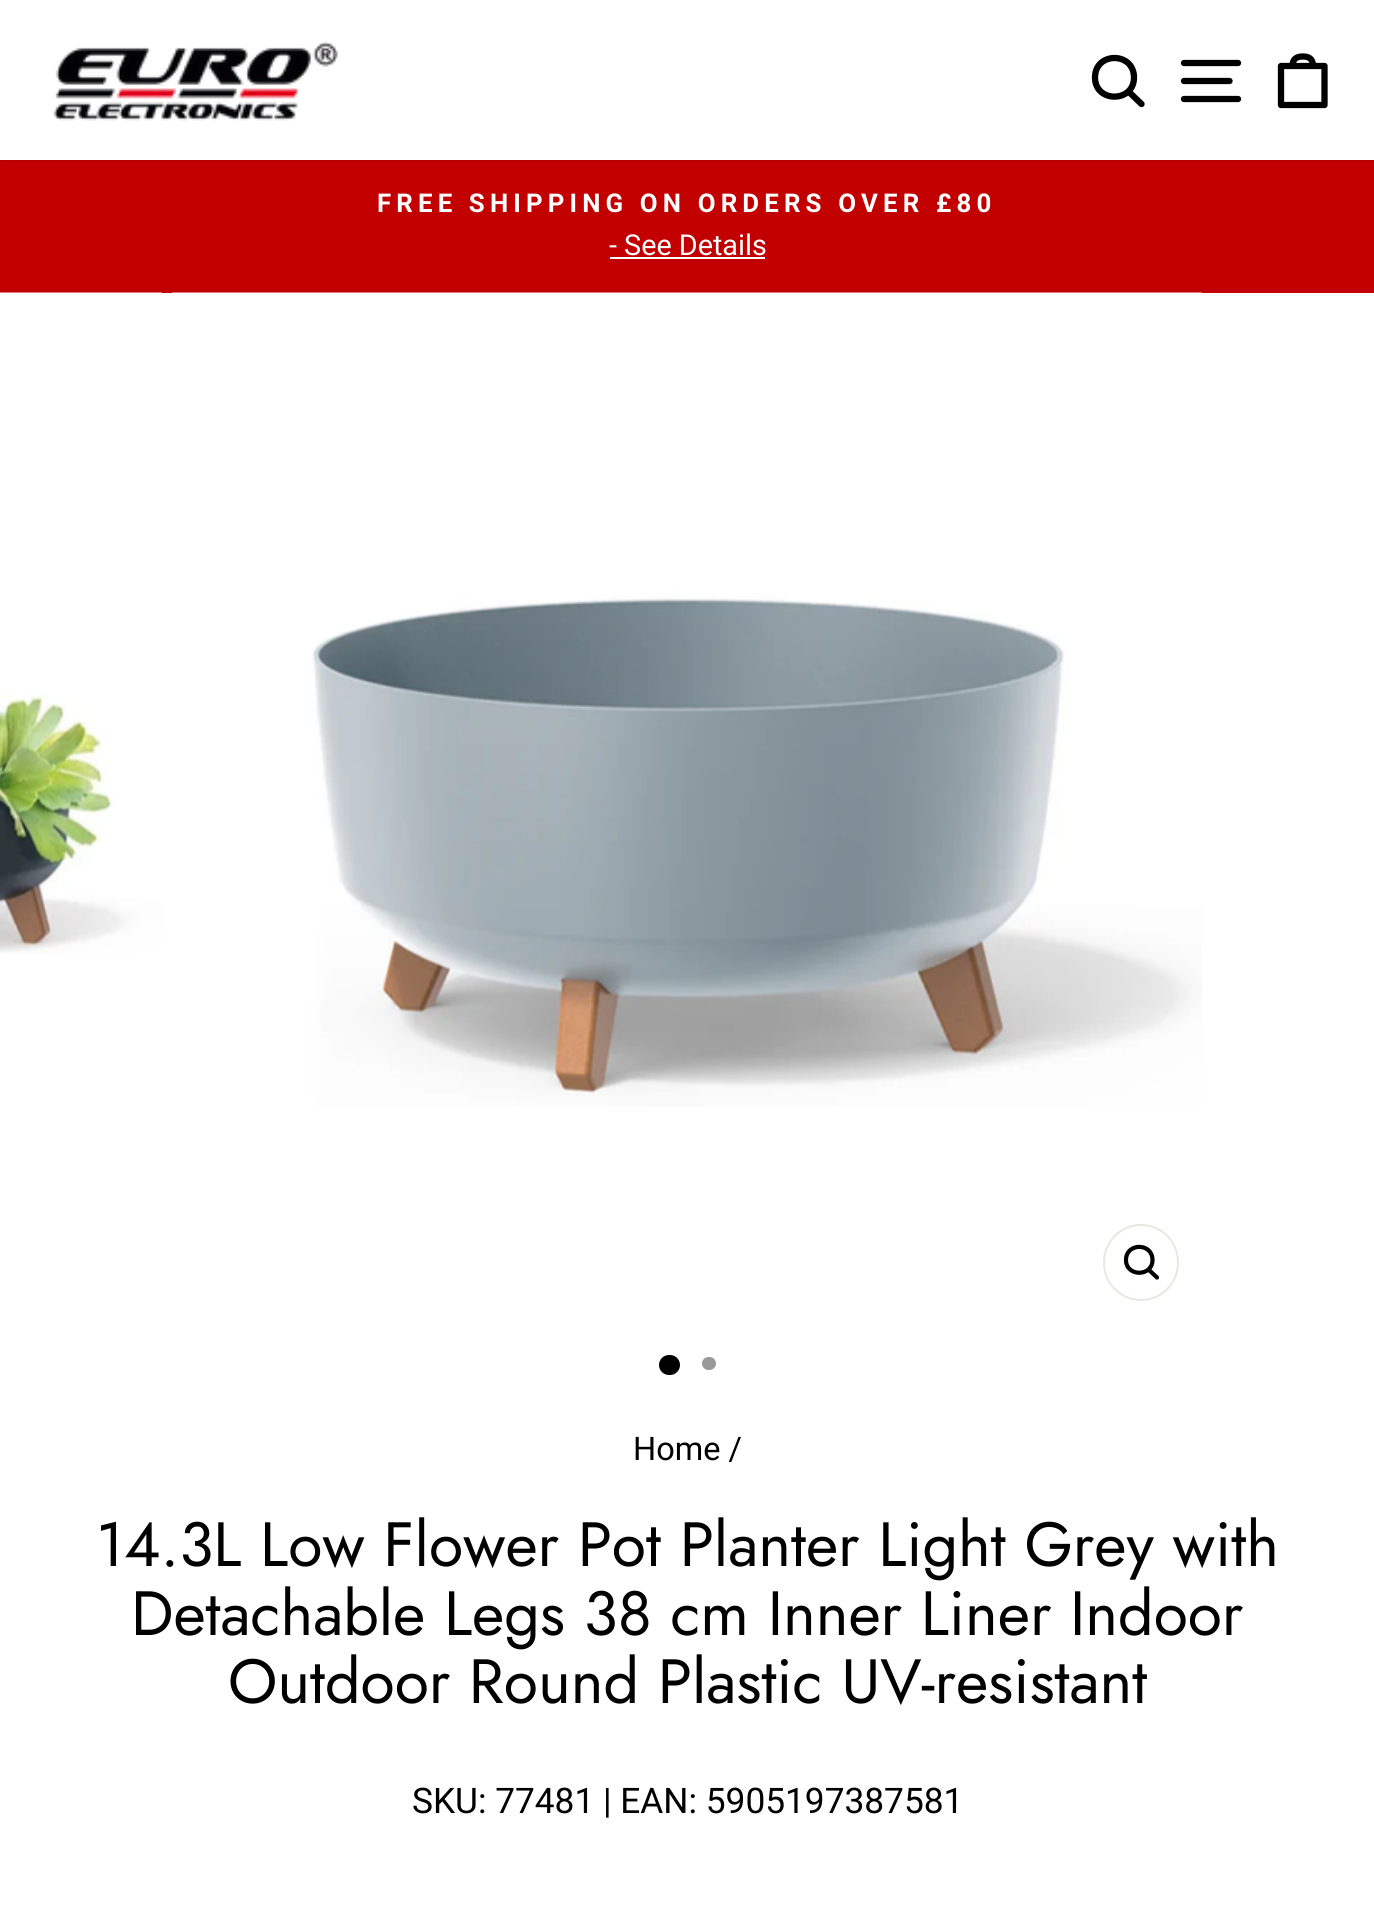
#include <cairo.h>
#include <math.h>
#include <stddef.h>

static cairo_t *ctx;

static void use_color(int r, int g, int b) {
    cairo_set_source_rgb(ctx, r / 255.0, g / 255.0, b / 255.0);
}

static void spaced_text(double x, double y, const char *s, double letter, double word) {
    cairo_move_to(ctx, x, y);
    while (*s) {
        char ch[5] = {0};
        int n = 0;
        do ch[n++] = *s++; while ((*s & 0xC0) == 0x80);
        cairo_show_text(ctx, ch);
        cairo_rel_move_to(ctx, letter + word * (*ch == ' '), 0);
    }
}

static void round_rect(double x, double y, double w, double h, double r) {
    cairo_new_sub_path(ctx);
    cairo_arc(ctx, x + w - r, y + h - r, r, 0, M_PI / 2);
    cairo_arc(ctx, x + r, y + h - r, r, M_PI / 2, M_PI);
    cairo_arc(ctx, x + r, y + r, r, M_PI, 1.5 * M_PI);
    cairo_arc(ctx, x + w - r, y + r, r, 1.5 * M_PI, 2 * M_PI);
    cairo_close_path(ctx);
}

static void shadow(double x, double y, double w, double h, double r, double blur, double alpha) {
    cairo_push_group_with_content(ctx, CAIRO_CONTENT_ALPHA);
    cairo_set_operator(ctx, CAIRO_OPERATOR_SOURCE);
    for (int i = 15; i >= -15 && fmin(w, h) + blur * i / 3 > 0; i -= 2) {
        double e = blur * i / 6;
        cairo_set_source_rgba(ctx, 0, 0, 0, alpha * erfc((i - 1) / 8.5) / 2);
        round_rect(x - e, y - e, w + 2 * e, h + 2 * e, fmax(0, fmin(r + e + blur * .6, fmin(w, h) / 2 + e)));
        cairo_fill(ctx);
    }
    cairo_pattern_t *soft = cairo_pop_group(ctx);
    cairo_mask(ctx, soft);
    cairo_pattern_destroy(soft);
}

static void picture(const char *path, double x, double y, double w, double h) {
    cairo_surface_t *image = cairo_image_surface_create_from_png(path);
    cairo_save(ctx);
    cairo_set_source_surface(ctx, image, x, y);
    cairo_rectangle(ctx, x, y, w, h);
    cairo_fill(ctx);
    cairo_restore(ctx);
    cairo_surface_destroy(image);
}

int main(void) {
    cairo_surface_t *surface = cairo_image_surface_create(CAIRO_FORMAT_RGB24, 1374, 1907);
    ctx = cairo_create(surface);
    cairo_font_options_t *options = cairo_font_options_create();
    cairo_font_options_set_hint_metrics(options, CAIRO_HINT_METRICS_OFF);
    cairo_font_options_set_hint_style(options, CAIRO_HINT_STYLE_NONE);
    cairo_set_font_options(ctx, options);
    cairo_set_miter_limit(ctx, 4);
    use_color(255, 255, 255);
    cairo_paint(ctx);
    use_color(194, 0, 0);
    cairo_rectangle(ctx, 0, 160, 1374, 133);
    cairo_fill(ctx);
    use_color(0, 0, 0);
    shadow(0, 0, 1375, 160, 0, 1, 0.2);
    use_color(255, 255, 255);
    cairo_rectangle(ctx, 0, 0, 1374, 160);
    cairo_fill(ctx);
    picture("img1.png", 53, 41, 286, 80);
    cairo_new_path(ctx);
    cairo_move_to(ctx, 1134, 77.5);
    cairo_curve_to(ctx, 1134, 103, 1095, 103, 1095, 77.5);
    cairo_curve_to(ctx, 1095, 51.5, 1134, 51.5, 1134, 77.5);
    cairo_close_path(ctx);
    cairo_move_to(ctx, 1141.5, 104);
    cairo_line_to(ctx, 1128.5, 91.5);
    use_color(0, 0, 0);
    cairo_set_line_width(ctx, 6.3);
    cairo_set_line_cap(ctx, CAIRO_LINE_CAP_ROUND);
    cairo_set_line_join(ctx, CAIRO_LINE_JOIN_ROUND);
    cairo_stroke(ctx);
    cairo_new_path(ctx);
    cairo_move_to(ctx, 1184, 63);
    cairo_line_to(ctx, 1238, 63);
    cairo_move_to(ctx, 1184, 81);
    cairo_line_to(ctx, 1229.5, 81);
    cairo_move_to(ctx, 1184, 99);
    cairo_line_to(ctx, 1238, 99);
    cairo_stroke(ctx);
    cairo_new_path(ctx);
    cairo_move_to(ctx, 1281, 66);
    cairo_line_to(ctx, 1324.5, 66);
    cairo_line_to(ctx, 1324.5, 105);
    cairo_line_to(ctx, 1281, 105);
    cairo_close_path(ctx);
    cairo_move_to(ctx, 1292.5, 66);
    cairo_curve_to(ctx, 1292.5, 58.5, 1297, 56.5, 1303, 56.5);
    cairo_curve_to(ctx, 1308.5, 56.5, 1313, 58.5, 1313, 66);
    cairo_stroke(ctx);
    cairo_select_font_face(ctx, "Roboto", CAIRO_FONT_SLANT_NORMAL, CAIRO_FONT_WEIGHT_BOLD);
    cairo_set_font_size(ctx, 25.8);
    use_color(255, 255, 255);
    spaced_text(377, 212, "FREE SHIPPING ON ORDERS OVER £80", 5.15, 0);
    cairo_select_font_face(ctx, "Roboto", CAIRO_FONT_SLANT_NORMAL, CAIRO_FONT_WEIGHT_NORMAL);
    cairo_set_font_size(ctx, 28.75);
    cairo_move_to(ctx, 609, 255);
    cairo_show_text(ctx, "- See Details");
    cairo_rectangle(ctx, 610, 257, 155, 2);
    cairo_fill(ctx);
    picture("img2.png", 0, 292, 162, 662);
    picture("img3.png", 172, 292, 1030, 815);
    round_rect(1104, 1225, 74, 75, 37);
    use_color(232, 232, 225);
    cairo_set_line_width(ctx, 2);
    cairo_set_line_cap(ctx, CAIRO_LINE_CAP_BUTT);
    cairo_set_line_join(ctx, CAIRO_LINE_JOIN_MITER);
    cairo_stroke(ctx);
    cairo_new_path(ctx);
    cairo_move_to(ctx, 1152.5, 1260);
    cairo_curve_to(ctx, 1152.5, 1277, 1126, 1277, 1126, 1260);
    cairo_curve_to(ctx, 1126, 1242.5, 1152.5, 1242.5, 1152.5, 1260);
    cairo_close_path(ctx);
    cairo_move_to(ctx, 1157, 1277.5);
    cairo_line_to(ctx, 1148.5, 1269.5);
    use_color(0, 0, 0);
    cairo_set_line_width(ctx, 4.2);
    cairo_set_line_cap(ctx, CAIRO_LINE_CAP_ROUND);
    cairo_set_line_join(ctx, CAIRO_LINE_JOIN_ROUND);
    cairo_stroke(ctx);
    round_rect(659, 1355, 21, 20, 10);
    cairo_fill(ctx);
    use_color(153, 153, 153);
    round_rect(702, 1357, 14, 13, 6.5);
    cairo_fill(ctx);
    cairo_set_font_size(ctx, 32.5);
    use_color(0, 0, 0);
    cairo_move_to(ctx, 633, 1460);
    cairo_show_text(ctx, "Home /");
    cairo_select_font_face(ctx, "Jost", CAIRO_FONT_SLANT_NORMAL, CAIRO_FONT_WEIGHT_NORMAL);
    cairo_set_font_size(ctx, 62.4);
    cairo_move_to(ctx, 96, 1566);
    cairo_show_text(ctx, "14.3L Low Flower Pot Planter Light Grey with");
    cairo_move_to(ctx, 131, 1635);
    cairo_show_text(ctx, "Detachable Legs 38 cm Inner Liner Indoor");
    cairo_move_to(ctx, 228, 1703);
    cairo_show_text(ctx, "Outdoor Round Plastic UV-resistant");
    cairo_select_font_face(ctx, "Roboto", CAIRO_FONT_SLANT_NORMAL, CAIRO_FONT_WEIGHT_NORMAL);
    cairo_set_font_size(ctx, 35.25);
    cairo_move_to(ctx, 412, 1813);
    cairo_show_text(ctx, "SKU: 77481 | EAN: 5905197387581");
    cairo_surface_write_to_png(surface, "result.png");
    cairo_font_options_destroy(options);
    cairo_destroy(ctx);
    cairo_surface_destroy(surface);
    return 0;
}
